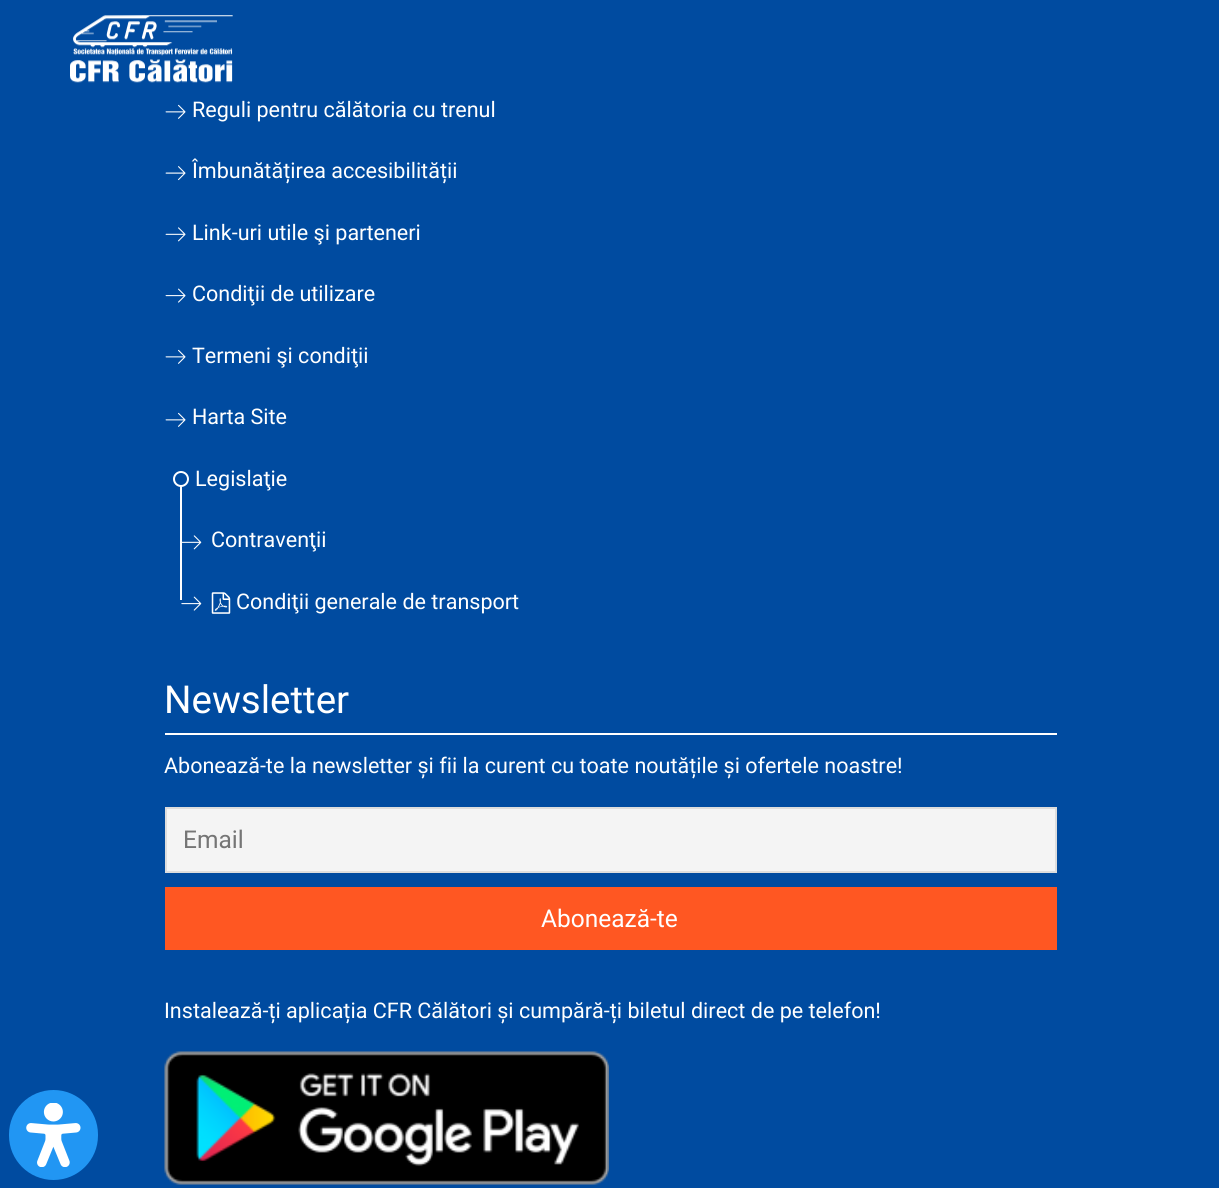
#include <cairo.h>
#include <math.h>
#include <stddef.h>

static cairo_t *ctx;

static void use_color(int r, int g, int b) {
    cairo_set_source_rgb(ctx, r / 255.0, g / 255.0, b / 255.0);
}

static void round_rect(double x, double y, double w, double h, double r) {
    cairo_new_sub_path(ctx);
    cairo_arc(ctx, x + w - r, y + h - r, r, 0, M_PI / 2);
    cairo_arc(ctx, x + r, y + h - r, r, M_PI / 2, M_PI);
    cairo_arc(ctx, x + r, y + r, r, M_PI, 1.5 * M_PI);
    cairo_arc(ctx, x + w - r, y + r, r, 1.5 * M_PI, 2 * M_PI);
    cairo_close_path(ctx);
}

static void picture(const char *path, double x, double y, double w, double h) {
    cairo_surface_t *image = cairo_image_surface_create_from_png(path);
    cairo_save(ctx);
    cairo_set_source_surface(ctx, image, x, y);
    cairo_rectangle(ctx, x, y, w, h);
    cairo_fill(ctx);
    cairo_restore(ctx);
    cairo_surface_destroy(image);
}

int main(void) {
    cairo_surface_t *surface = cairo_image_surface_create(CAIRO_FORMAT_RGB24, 1219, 1188);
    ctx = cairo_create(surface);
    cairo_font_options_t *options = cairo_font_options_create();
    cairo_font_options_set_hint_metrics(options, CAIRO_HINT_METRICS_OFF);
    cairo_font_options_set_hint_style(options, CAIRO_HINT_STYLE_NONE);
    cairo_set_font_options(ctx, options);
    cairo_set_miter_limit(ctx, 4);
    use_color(0, 75, 160);
    cairo_paint(ctx);
    picture("img1.png", 70, 15, 163, 68);
    picture("img2.png", 165, 104, 21, 15);
    cairo_select_font_face(ctx, "Roboto", CAIRO_FONT_SLANT_NORMAL, CAIRO_FONT_WEIGHT_NORMAL);
    cairo_set_font_size(ctx, 21.55);
    use_color(255, 255, 255);
    cairo_move_to(ctx, 192, 117);
    cairo_show_text(ctx, "Reguli pentru călătoria cu trenul");
    picture("img3.png", 165, 166, 21, 15);
    cairo_move_to(ctx, 192, 178);
    cairo_show_text(ctx, "Îmbunătățirea accesibilității");
    picture("img4.png", 165, 227, 21, 15);
    cairo_move_to(ctx, 192, 240);
    cairo_show_text(ctx, "Link-uri utile şi parteneri");
    picture("img5.png", 165, 288, 21, 15);
    cairo_move_to(ctx, 192, 301);
    cairo_show_text(ctx, "Condiţii de utilizare");
    picture("img2.png", 165, 349, 21, 15);
    cairo_move_to(ctx, 192, 363);
    cairo_show_text(ctx, "Termeni şi condiţii");
    picture("img2.png", 165, 412, 21, 15);
    cairo_move_to(ctx, 192, 424);
    cairo_show_text(ctx, "Harta Site");
    picture("img7.png", 181, 596, 21, 15);
    cairo_rectangle(ctx, 180, 485, 2, 115);
    cairo_fill(ctx);
    use_color(0, 75, 160);
    cairo_arc(ctx, 181, 479, 7, 0, 2 * M_PI);
    cairo_fill_preserve(ctx);
    use_color(255, 255, 255);
    cairo_stroke(ctx);
    cairo_move_to(ctx, 195, 486);
    cairo_show_text(ctx, "Legislaţie");
    picture("img6.png", 182, 535, 20, 15);
    cairo_move_to(ctx, 211, 547);
    cairo_show_text(ctx, "Contravenţii");
    picture("img8.png", 211, 592, 20, 22);
    cairo_move_to(ctx, 236, 609);
    cairo_show_text(ctx, "Condiţii generale de transport");
    cairo_rectangle(ctx, 165, 733, 892, 2);
    cairo_fill(ctx);
    cairo_set_font_size(ctx, 38.5);
    cairo_move_to(ctx, 164, 713);
    cairo_show_text(ctx, "Newsletter");
    cairo_set_font_size(ctx, 21.55);
    cairo_move_to(ctx, 164, 773);
    cairo_show_text(ctx, "Abonează-te la newsletter și fii la curent cu toate noutățile și ofertele noastre!");
    use_color(244, 244, 244);
    cairo_rectangle(ctx, 166, 808, 890, 64);
    cairo_fill_preserve(ctx);
    use_color(221, 221, 221);
    cairo_stroke(ctx);
    cairo_set_font_size(ctx, 24.5);
    use_color(117, 117, 117);
    cairo_move_to(ctx, 183, 848);
    cairo_show_text(ctx, "Email");
    use_color(255, 87, 34);
    cairo_rectangle(ctx, 165, 887, 892, 63);
    cairo_fill(ctx);
    use_color(255, 255, 255);
    cairo_move_to(ctx, 541, 927);
    cairo_show_text(ctx, "Abonează-te");
    cairo_set_font_size(ctx, 21.55);
    cairo_move_to(ctx, 164, 1018);
    cairo_show_text(ctx, "Instalează-ți aplicația CFR Călători și cumpără-ți biletul direct de pe telefon!");
    picture("img9.png", 164, 1051, 445, 134);
    use_color(33, 150, 243);
    round_rect(9, 1090, 89, 90, 44.5);
    cairo_fill(ctx);
    picture("img10.png", 26, 1103, 55, 64);
    cairo_surface_write_to_png(surface, "result.png");
    cairo_font_options_destroy(options);
    cairo_destroy(ctx);
    cairo_surface_destroy(surface);
    return 0;
}
